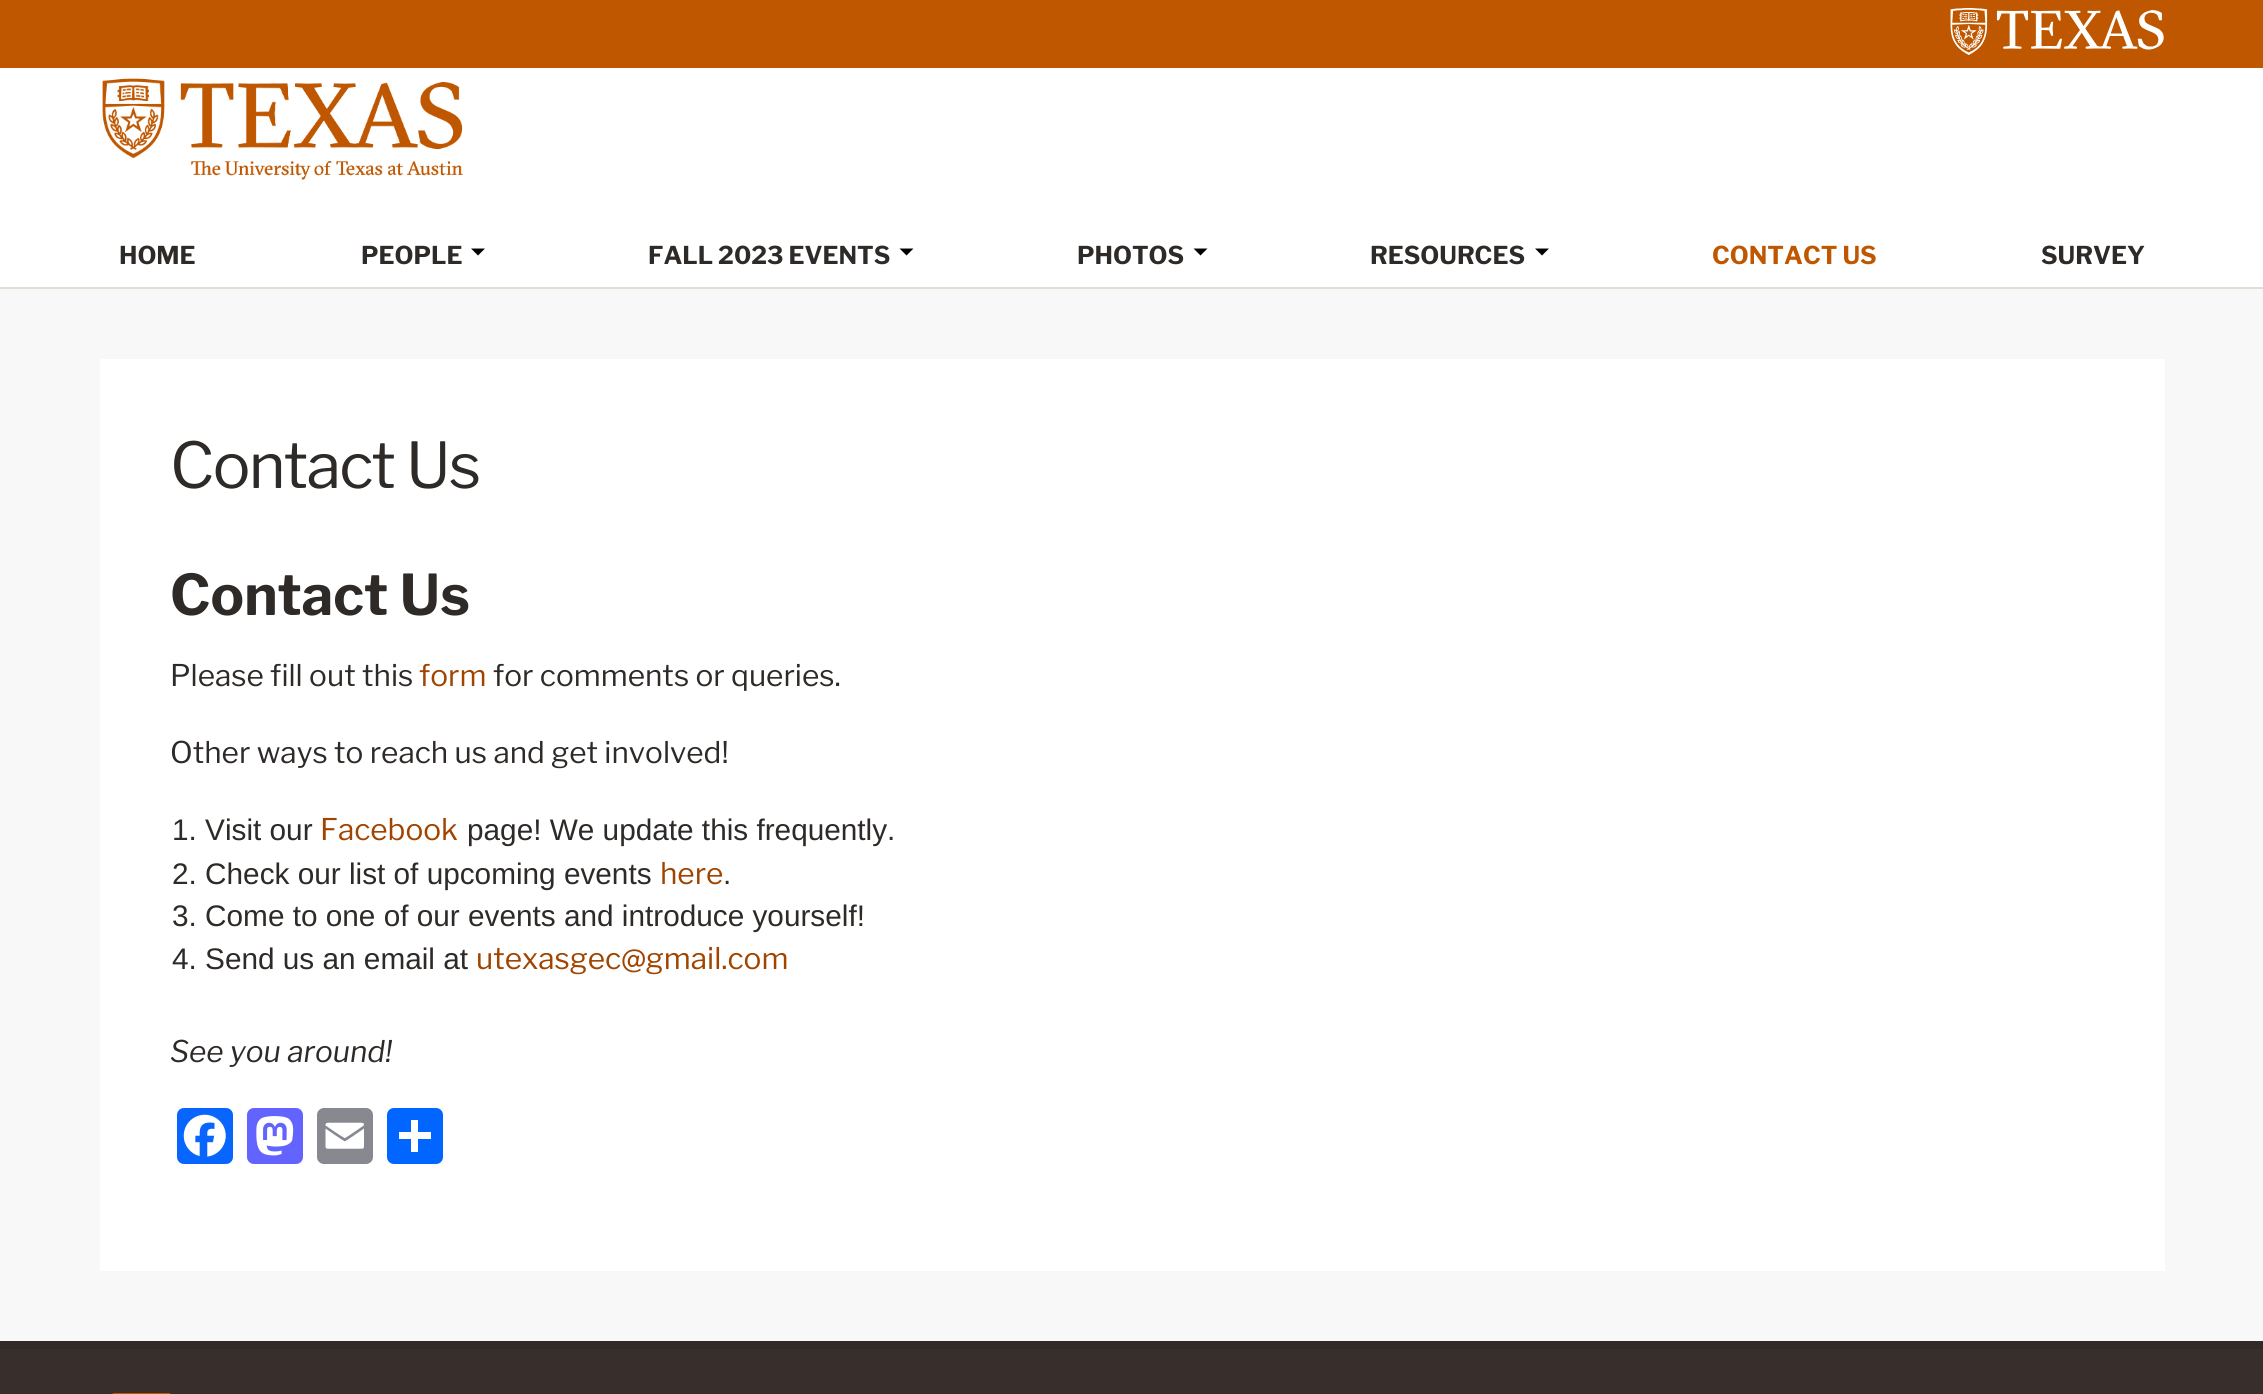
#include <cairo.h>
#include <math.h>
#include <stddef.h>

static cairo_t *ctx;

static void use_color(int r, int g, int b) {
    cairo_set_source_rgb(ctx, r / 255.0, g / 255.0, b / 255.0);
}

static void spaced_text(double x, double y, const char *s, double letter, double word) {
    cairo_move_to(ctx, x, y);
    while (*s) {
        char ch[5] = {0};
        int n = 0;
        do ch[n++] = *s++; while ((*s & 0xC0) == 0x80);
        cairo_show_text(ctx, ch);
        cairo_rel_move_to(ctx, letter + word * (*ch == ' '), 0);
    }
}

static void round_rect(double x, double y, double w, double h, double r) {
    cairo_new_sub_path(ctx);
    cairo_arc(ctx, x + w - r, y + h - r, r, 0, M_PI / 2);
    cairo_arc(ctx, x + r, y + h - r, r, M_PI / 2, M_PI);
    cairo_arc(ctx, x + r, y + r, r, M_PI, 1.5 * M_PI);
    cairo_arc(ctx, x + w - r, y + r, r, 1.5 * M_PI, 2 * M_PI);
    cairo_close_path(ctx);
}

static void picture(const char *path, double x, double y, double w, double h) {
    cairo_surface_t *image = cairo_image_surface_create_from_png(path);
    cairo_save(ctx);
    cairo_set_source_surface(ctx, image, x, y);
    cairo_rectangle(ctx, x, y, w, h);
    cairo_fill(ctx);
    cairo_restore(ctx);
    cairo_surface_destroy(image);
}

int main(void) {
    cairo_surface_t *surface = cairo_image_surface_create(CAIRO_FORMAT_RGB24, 2263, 1394);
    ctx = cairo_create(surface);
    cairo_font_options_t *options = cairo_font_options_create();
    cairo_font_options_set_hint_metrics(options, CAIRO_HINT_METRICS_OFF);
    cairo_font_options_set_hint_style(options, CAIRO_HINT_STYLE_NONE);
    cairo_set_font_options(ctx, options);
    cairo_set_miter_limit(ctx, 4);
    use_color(248, 248, 248);
    cairo_paint(ctx);
    use_color(191, 87, 0);
    cairo_rectangle(ctx, 0, 0, 2263, 68);
    cairo_fill(ctx);
    picture("img1.png", 1950, 8, 214, 47);
    use_color(255, 255, 255);
    cairo_rectangle(ctx, 0, 68, 2263, 219);
    cairo_fill(ctx);
    use_color(225, 221, 210);
    cairo_rectangle(ctx, 0, 287, 2263, 2);
    cairo_fill(ctx);
    picture("img2.png", 102, 78, 361, 102);
    cairo_select_font_face(ctx, "Libre Franklin", CAIRO_FONT_SLANT_NORMAL, CAIRO_FONT_WEIGHT_BOLD);
    cairo_set_font_size(ctx, 24.5);
    use_color(45, 42, 40);
    cairo_move_to(ctx, 119, 264);
    cairo_show_text(ctx, "HOME");
    cairo_move_to(ctx, 361, 264);
    cairo_show_text(ctx, "PEOPLE");
    use_color(0, 0, 0);
    cairo_new_path(ctx);
    cairo_move_to(ctx, 471, 248.5);
    cairo_line_to(ctx, 485, 248.5);
    cairo_line_to(ctx, 478, 255.5);
    cairo_close_path(ctx);
    cairo_fill(ctx);
    use_color(45, 42, 40);
    cairo_move_to(ctx, 648, 264);
    cairo_show_text(ctx, "FALL 2023 EVENTS");
    use_color(0, 0, 0);
    cairo_new_path(ctx);
    cairo_move_to(ctx, 899.5, 248.5);
    cairo_line_to(ctx, 913.5, 248.5);
    cairo_line_to(ctx, 906.5, 255.5);
    cairo_close_path(ctx);
    cairo_fill(ctx);
    use_color(45, 42, 40);
    cairo_move_to(ctx, 1077, 264);
    cairo_show_text(ctx, "PHOTOS");
    use_color(0, 0, 0);
    cairo_new_path(ctx);
    cairo_move_to(ctx, 1193.5, 248.5);
    cairo_line_to(ctx, 1207.5, 248.5);
    cairo_line_to(ctx, 1200.5, 255.5);
    cairo_close_path(ctx);
    cairo_fill(ctx);
    use_color(45, 42, 40);
    cairo_move_to(ctx, 1370, 264);
    cairo_show_text(ctx, "RESOURCES");
    use_color(0, 0, 0);
    cairo_new_path(ctx);
    cairo_move_to(ctx, 1535, 248.5);
    cairo_line_to(ctx, 1549, 248.5);
    cairo_line_to(ctx, 1542, 255.5);
    cairo_close_path(ctx);
    cairo_fill(ctx);
    use_color(191, 87, 0);
    cairo_move_to(ctx, 1712, 264);
    cairo_show_text(ctx, "CONTACT US");
    use_color(45, 42, 40);
    cairo_move_to(ctx, 2041, 264);
    cairo_show_text(ctx, "SURVEY");
    use_color(255, 255, 255);
    cairo_rectangle(ctx, 100, 359, 2065, 912);
    cairo_fill(ctx);
    cairo_select_font_face(ctx, "Libre Franklin", CAIRO_FONT_SLANT_NORMAL, CAIRO_FONT_WEIGHT_NORMAL);
    cairo_set_font_size(ctx, 63);
    use_color(45, 42, 40);
    spaced_text(170, 488, "Contact Us", -1.75, 0);
    cairo_select_font_face(ctx, "Libre Franklin", CAIRO_FONT_SLANT_NORMAL, CAIRO_FONT_WEIGHT_BOLD);
    cairo_set_font_size(ctx, 56);
    cairo_move_to(ctx, 170, 615);
    cairo_show_text(ctx, "Contact Us");
    cairo_select_font_face(ctx, "Libre Franklin", CAIRO_FONT_SLANT_NORMAL, CAIRO_FONT_WEIGHT_NORMAL);
    cairo_set_font_size(ctx, 29.75);
    cairo_move_to(ctx, 170, 686);
    cairo_show_text(ctx, "Please fill out this");
    use_color(160, 68, 0);
    cairo_move_to(ctx, 419, 686);
    cairo_show_text(ctx, "form");
    use_color(45, 42, 40);
    cairo_move_to(ctx, 493, 686);
    cairo_show_text(ctx, "for comments or queries.");
    cairo_move_to(ctx, 170, 763);
    cairo_show_text(ctx, "Other ways to reach us and get involved!");
    cairo_select_font_face(ctx, "Liberation Sans", CAIRO_FONT_SLANT_NORMAL, CAIRO_FONT_WEIGHT_NORMAL);
    cairo_move_to(ctx, 172, 840);
    cairo_show_text(ctx, "1. Visit our");
    cairo_select_font_face(ctx, "Libre Franklin", CAIRO_FONT_SLANT_NORMAL, CAIRO_FONT_WEIGHT_NORMAL);
    use_color(160, 68, 0);
    cairo_move_to(ctx, 320, 840);
    cairo_show_text(ctx, "Facebook");
    cairo_select_font_face(ctx, "Liberation Sans", CAIRO_FONT_SLANT_NORMAL, CAIRO_FONT_WEIGHT_NORMAL);
    use_color(45, 42, 40);
    cairo_move_to(ctx, 467, 840);
    cairo_show_text(ctx, "page! We update this frequently.");
    cairo_move_to(ctx, 172, 884);
    cairo_show_text(ctx, "2. Check our list of upcoming events");
    cairo_select_font_face(ctx, "Libre Franklin", CAIRO_FONT_SLANT_NORMAL, CAIRO_FONT_WEIGHT_NORMAL);
    use_color(160, 68, 0);
    cairo_move_to(ctx, 660, 884);
    cairo_show_text(ctx, "here");
    cairo_select_font_face(ctx, "Liberation Sans", CAIRO_FONT_SLANT_NORMAL, CAIRO_FONT_WEIGHT_NORMAL);
    use_color(45, 42, 40);
    cairo_move_to(ctx, 723, 884);
    cairo_show_text(ctx, ".");
    cairo_move_to(ctx, 172, 926);
    cairo_show_text(ctx, "3. Come to one of our events and introduce yourself!");
    cairo_move_to(ctx, 172, 969);
    cairo_show_text(ctx, "4. Send us an email at");
    cairo_select_font_face(ctx, "Libre Franklin", CAIRO_FONT_SLANT_NORMAL, CAIRO_FONT_WEIGHT_NORMAL);
    use_color(160, 68, 0);
    cairo_move_to(ctx, 476, 969);
    cairo_show_text(ctx, "utexasgec@gmail.com");
    cairo_select_font_face(ctx, "Libre Franklin", CAIRO_FONT_SLANT_ITALIC, CAIRO_FONT_WEIGHT_NORMAL);
    use_color(45, 42, 40);
    cairo_move_to(ctx, 170, 1062);
    cairo_show_text(ctx, "See you around!");
    use_color(8, 102, 255);
    round_rect(177, 1108, 56, 56, 7);
    cairo_fill(ctx);
    picture("img3.png", 183, 1114, 43, 43);
    use_color(99, 100, 255);
    round_rect(247, 1108, 56, 56, 7);
    cairo_fill(ctx);
    picture("img4.png", 256, 1116, 38, 40);
    use_color(136, 137, 144);
    round_rect(317, 1108, 56, 56, 7);
    cairo_fill(ctx);
    picture("img5.png", 325, 1122, 39, 27);
    use_color(1, 102, 255);
    round_rect(387, 1108, 56, 56, 7);
    cairo_fill(ctx);
    use_color(255, 255, 255);
    cairo_rectangle(ctx, 411, 1120, 7, 32);
    cairo_fill(ctx);
    cairo_rectangle(ctx, 399, 1132, 32, 7);
    cairo_fill(ctx);
    use_color(56, 47, 45);
    cairo_rectangle(ctx, 0, 1349, 2263, 45);
    cairo_fill(ctx);
    use_color(50, 42, 41);
    cairo_rectangle(ctx, 0, 1341, 2263, 8);
    cairo_fill(ctx);
    use_color(191, 87, 0);
    round_rect(110, 1393, 63, 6, 5);
    cairo_fill(ctx);
    cairo_surface_write_to_png(surface, "result.png");
    cairo_font_options_destroy(options);
    cairo_destroy(ctx);
    cairo_surface_destroy(surface);
    return 0;
}
